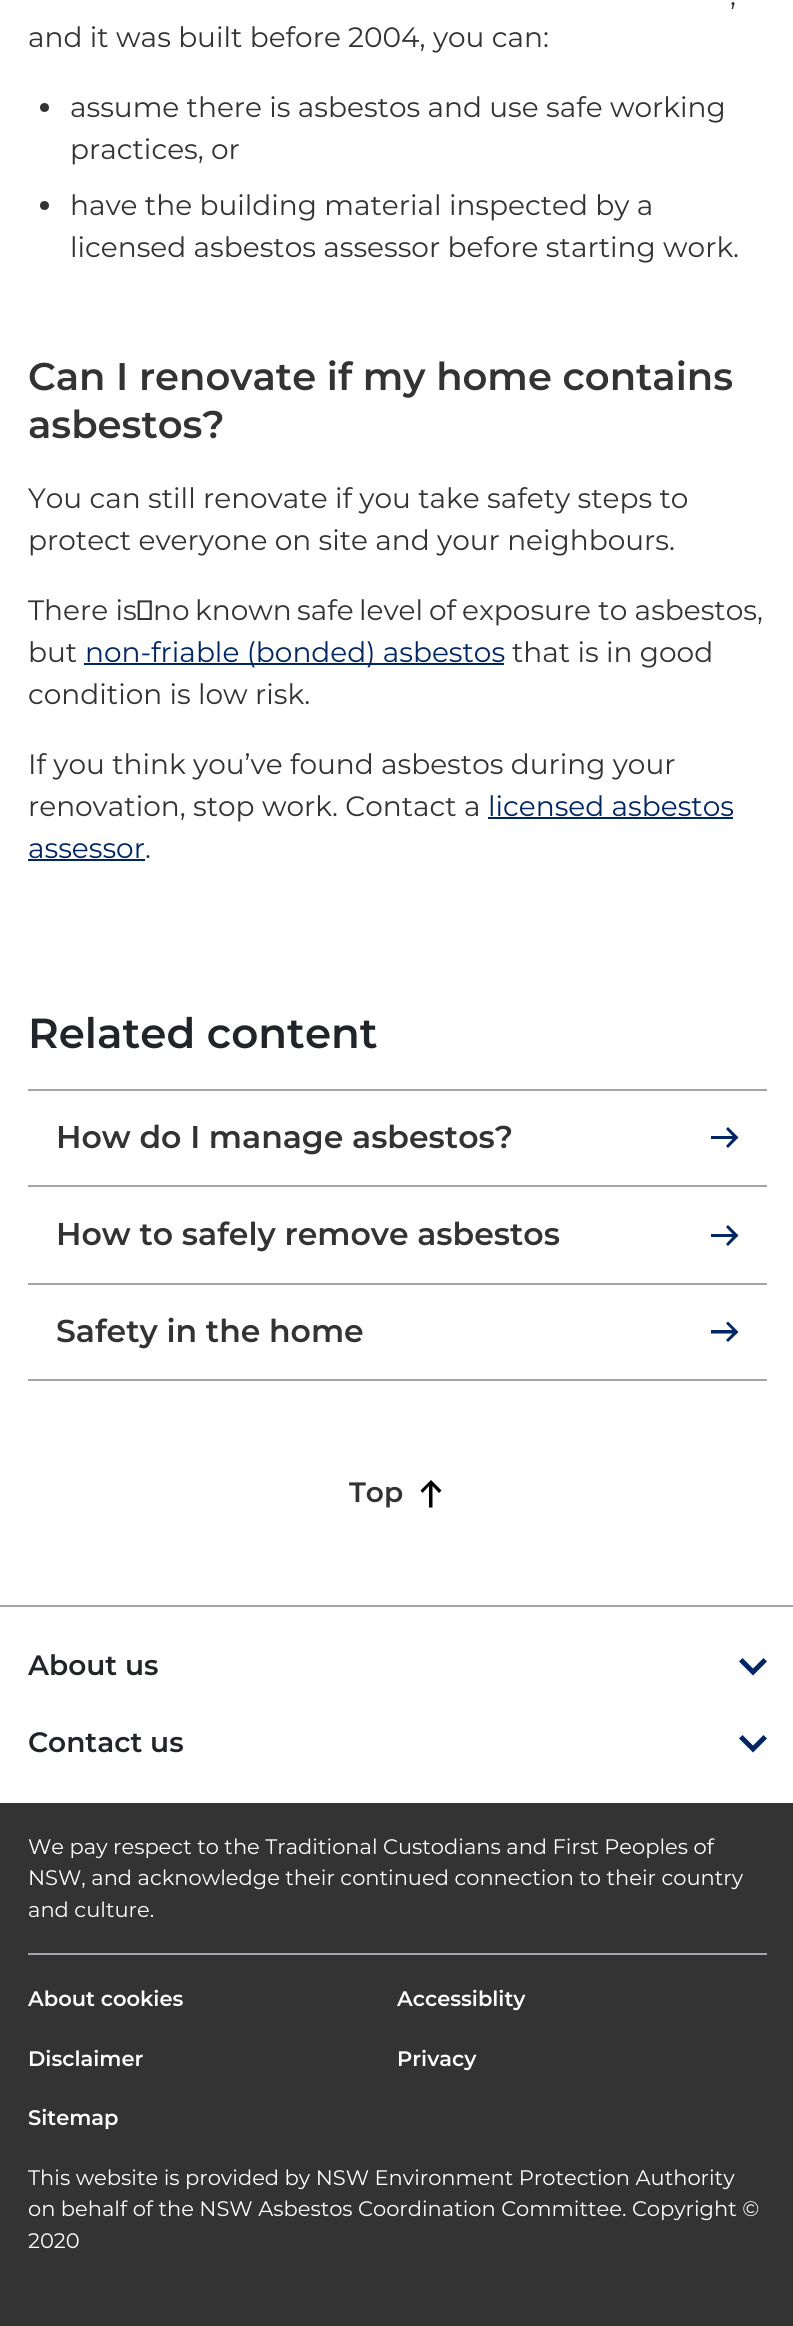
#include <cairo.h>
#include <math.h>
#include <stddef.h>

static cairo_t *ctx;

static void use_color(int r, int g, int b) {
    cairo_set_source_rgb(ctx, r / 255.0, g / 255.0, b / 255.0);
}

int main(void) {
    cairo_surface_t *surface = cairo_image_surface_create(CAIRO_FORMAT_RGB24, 793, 2326);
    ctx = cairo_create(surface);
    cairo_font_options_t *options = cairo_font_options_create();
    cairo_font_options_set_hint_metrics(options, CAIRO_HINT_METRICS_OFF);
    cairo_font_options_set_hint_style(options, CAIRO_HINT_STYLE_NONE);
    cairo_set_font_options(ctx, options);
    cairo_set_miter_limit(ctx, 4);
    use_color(255, 255, 255);
    cairo_paint(ctx);
    cairo_select_font_face(ctx, "Montserrat", CAIRO_FONT_SLANT_NORMAL, CAIRO_FONT_WEIGHT_NORMAL);
    cairo_set_font_size(ctx, 28);
    use_color(51, 51, 51);
    cairo_move_to(ctx, 730, 5);
    cairo_show_text(ctx, ",");
    cairo_move_to(ctx, 28, 47);
    cairo_show_text(ctx, "and it was built before 2004, you can:");
    cairo_new_path(ctx);
    cairo_arc(ctx, 44.5, 107.5, 4.5, 0, 2 * M_PI);
    cairo_fill(ctx);
    cairo_move_to(ctx, 70, 117);
    cairo_show_text(ctx, "assume there is asbestos and use safe working");
    cairo_move_to(ctx, 70, 159);
    cairo_show_text(ctx, "practices, or");
    cairo_new_path(ctx);
    cairo_arc(ctx, 44.5, 205.5, 4.5, 0, 2 * M_PI);
    cairo_fill(ctx);
    cairo_move_to(ctx, 70, 215);
    cairo_show_text(ctx, "have the building material inspected by a");
    cairo_move_to(ctx, 70, 257);
    cairo_show_text(ctx, "licensed asbestos assessor before starting work.");
    cairo_select_font_face(ctx, "Montserrat SemiBold", CAIRO_FONT_SLANT_NORMAL, CAIRO_FONT_WEIGHT_NORMAL);
    cairo_set_font_size(ctx, 38.5);
    cairo_move_to(ctx, 28, 390);
    cairo_show_text(ctx, "Can I renovate if my home contains");
    cairo_move_to(ctx, 28, 438);
    cairo_show_text(ctx, "asbestos?");
    cairo_select_font_face(ctx, "Montserrat", CAIRO_FONT_SLANT_NORMAL, CAIRO_FONT_WEIGHT_NORMAL);
    cairo_set_font_size(ctx, 28);
    cairo_move_to(ctx, 28, 508);
    cairo_show_text(ctx, "You can still renovate if you take safety steps to");
    cairo_move_to(ctx, 28, 550);
    cairo_show_text(ctx, "protect everyone on site and your neighbours.");
    cairo_move_to(ctx, 28, 620);
    cairo_show_text(ctx, "There is no");
    cairo_move_to(ctx, 195, 620);
    cairo_show_text(ctx, "known");
    cairo_move_to(ctx, 297, 620);
    cairo_show_text(ctx, "safe");
    cairo_move_to(ctx, 359, 620);
    cairo_show_text(ctx, "level");
    cairo_move_to(ctx, 429, 620);
    cairo_show_text(ctx, "of");
    cairo_move_to(ctx, 462, 620);
    cairo_show_text(ctx, "exposure to asbestos,");
    cairo_move_to(ctx, 28, 662);
    cairo_show_text(ctx, "but");
    use_color(0, 38, 100);
    cairo_rectangle(ctx, 84, 663, 420, 2);
    cairo_fill(ctx);
    cairo_move_to(ctx, 85, 662);
    cairo_show_text(ctx, "non-friable (bonded) asbestos");
    use_color(51, 51, 51);
    cairo_move_to(ctx, 512, 662);
    cairo_show_text(ctx, "that is in good");
    cairo_move_to(ctx, 28, 704);
    cairo_show_text(ctx, "condition is low risk.");
    cairo_move_to(ctx, 28, 774);
    cairo_show_text(ctx, "If you think you’ve found asbestos during your");
    cairo_move_to(ctx, 28, 816);
    cairo_show_text(ctx, "renovation, stop work. Contact a");
    use_color(0, 38, 100);
    cairo_move_to(ctx, 488, 816);
    cairo_show_text(ctx, "licensed asbestos");
    cairo_rectangle(ctx, 488, 817, 245, 2);
    cairo_fill(ctx);
    cairo_move_to(ctx, 28, 858);
    cairo_show_text(ctx, "assessor");
    cairo_rectangle(ctx, 28, 859, 117, 2);
    cairo_fill(ctx);
    use_color(51, 51, 51);
    cairo_move_to(ctx, 145, 858);
    cairo_show_text(ctx, ".");
    cairo_select_font_face(ctx, "Montserrat SemiBold", CAIRO_FONT_SLANT_NORMAL, CAIRO_FONT_WEIGHT_NORMAL);
    cairo_set_font_size(ctx, 42);
    use_color(33, 37, 41);
    cairo_move_to(ctx, 28, 1048);
    cairo_show_text(ctx, "Related content");
    use_color(160, 165, 174);
    cairo_rectangle(ctx, 28, 1089, 739, 2);
    cairo_fill(ctx);
    cairo_set_font_size(ctx, 31.5);
    use_color(51, 51, 51);
    cairo_move_to(ctx, 56, 1148);
    cairo_show_text(ctx, "How do I manage asbestos?");
    cairo_save(ctx);
    cairo_rectangle(ctx, 711, 1124, 28, 28);
    cairo_clip(ctx);
    use_color(0, 38, 100);
    cairo_new_path(ctx);
    cairo_move_to(ctx, 728, 1127);
    cairo_line_to(ctx, 738.5, 1137.5);
    cairo_line_to(ctx, 728, 1148);
    cairo_line_to(ctx, 726, 1146);
    cairo_line_to(ctx, 732.5, 1139);
    cairo_line_to(ctx, 710.5, 1139);
    cairo_line_to(ctx, 710.5, 1136);
    cairo_line_to(ctx, 732.5, 1136);
    cairo_line_to(ctx, 726, 1129);
    cairo_close_path(ctx);
    cairo_fill(ctx);
    cairo_restore(ctx);
    use_color(160, 165, 174);
    cairo_rectangle(ctx, 28, 1185, 739, 2);
    cairo_fill(ctx);
    use_color(51, 51, 51);
    cairo_move_to(ctx, 56, 1245);
    cairo_show_text(ctx, "How to safely remove asbestos");
    cairo_save(ctx);
    cairo_rectangle(ctx, 711, 1222, 28, 28);
    cairo_clip(ctx);
    use_color(0, 38, 100);
    cairo_new_path(ctx);
    cairo_move_to(ctx, 728, 1225);
    cairo_line_to(ctx, 738.5, 1235.5);
    cairo_line_to(ctx, 728, 1246);
    cairo_line_to(ctx, 726, 1244);
    cairo_line_to(ctx, 732.5, 1237);
    cairo_line_to(ctx, 710.5, 1237);
    cairo_line_to(ctx, 710.5, 1234);
    cairo_line_to(ctx, 732.5, 1234);
    cairo_line_to(ctx, 726, 1227);
    cairo_close_path(ctx);
    cairo_fill(ctx);
    cairo_restore(ctx);
    use_color(160, 165, 174);
    cairo_rectangle(ctx, 28, 1283, 739, 2);
    cairo_fill(ctx);
    cairo_rectangle(ctx, 28, 1379, 739, 2);
    cairo_fill(ctx);
    use_color(51, 51, 51);
    cairo_move_to(ctx, 56, 1342);
    cairo_show_text(ctx, "Safety in the home");
    cairo_save(ctx);
    cairo_rectangle(ctx, 711, 1318, 28, 28);
    cairo_clip(ctx);
    use_color(0, 38, 100);
    cairo_new_path(ctx);
    cairo_move_to(ctx, 728, 1321.5);
    cairo_line_to(ctx, 738.5, 1332);
    cairo_line_to(ctx, 728, 1342);
    cairo_line_to(ctx, 726, 1340);
    cairo_line_to(ctx, 732.5, 1333.5);
    cairo_line_to(ctx, 710.5, 1333.5);
    cairo_line_to(ctx, 710.5, 1330);
    cairo_line_to(ctx, 732.5, 1330);
    cairo_line_to(ctx, 726, 1323.5);
    cairo_close_path(ctx);
    cairo_fill(ctx);
    cairo_restore(ctx);
    cairo_set_font_size(ctx, 28);
    cairo_move_to(ctx, 349, 1502);
    cairo_show_text(ctx, "Top");
    use_color(0, 0, 0);
    cairo_new_path(ctx);
    cairo_move_to(ctx, 420.5, 1490.5);
    cairo_line_to(ctx, 422.5, 1493);
    cairo_line_to(ctx, 429, 1486);
    cairo_line_to(ctx, 429, 1507.5);
    cairo_line_to(ctx, 432.5, 1507.5);
    cairo_line_to(ctx, 432.5, 1486);
    cairo_line_to(ctx, 439, 1493);
    cairo_line_to(ctx, 441.5, 1490.5);
    cairo_line_to(ctx, 431, 1480);
    cairo_close_path(ctx);
    cairo_fill(ctx);
    use_color(160, 165, 174);
    cairo_rectangle(ctx, 0, 1605, 793, 2);
    cairo_fill(ctx);
    use_color(33, 37, 41);
    cairo_move_to(ctx, 28, 1675);
    cairo_show_text(ctx, "About us");
    use_color(0, 38, 100);
    cairo_new_path(ctx);
    cairo_move_to(ctx, 753, 1675.5);
    cairo_line_to(ctx, 767, 1661.5);
    cairo_line_to(ctx, 763.5, 1658);
    cairo_line_to(ctx, 753, 1668.5);
    cairo_line_to(ctx, 742.5, 1658);
    cairo_line_to(ctx, 739, 1661.5);
    cairo_close_path(ctx);
    cairo_fill(ctx);
    use_color(33, 37, 41);
    cairo_move_to(ctx, 28, 1752);
    cairo_show_text(ctx, "Contact us");
    use_color(0, 38, 100);
    cairo_new_path(ctx);
    cairo_move_to(ctx, 753, 1752.5);
    cairo_line_to(ctx, 767, 1738.5);
    cairo_line_to(ctx, 763.5, 1735);
    cairo_line_to(ctx, 753, 1745.5);
    cairo_line_to(ctx, 742.5, 1735);
    cairo_line_to(ctx, 739, 1738.5);
    cairo_close_path(ctx);
    cairo_fill(ctx);
    use_color(51, 51, 51);
    cairo_rectangle(ctx, 0, 1803, 793, 523);
    cairo_fill(ctx);
    cairo_select_font_face(ctx, "Montserrat", CAIRO_FONT_SLANT_NORMAL, CAIRO_FONT_WEIGHT_NORMAL);
    cairo_set_font_size(ctx, 21);
    use_color(255, 255, 255);
    cairo_move_to(ctx, 28, 1854);
    cairo_show_text(ctx, "We pay respect to the Traditional Custodians and First Peoples of");
    cairo_move_to(ctx, 28, 1885);
    cairo_show_text(ctx, "NSW, and acknowledge their continued connection to their country");
    cairo_move_to(ctx, 28, 1917);
    cairo_show_text(ctx, "and culture.");
    use_color(160, 165, 174);
    cairo_rectangle(ctx, 28, 1953, 739, 2);
    cairo_fill(ctx);
    cairo_select_font_face(ctx, "Montserrat SemiBold", CAIRO_FONT_SLANT_NORMAL, CAIRO_FONT_WEIGHT_NORMAL);
    use_color(255, 255, 255);
    cairo_move_to(ctx, 28, 2006);
    cairo_show_text(ctx, "About cookies");
    cairo_move_to(ctx, 397, 2006);
    cairo_show_text(ctx, "Accessiblity");
    cairo_move_to(ctx, 28, 2066);
    cairo_show_text(ctx, "Disclaimer");
    cairo_move_to(ctx, 397, 2066);
    cairo_show_text(ctx, "Privacy");
    cairo_move_to(ctx, 28, 2125);
    cairo_show_text(ctx, "Sitemap");
    cairo_select_font_face(ctx, "Montserrat", CAIRO_FONT_SLANT_NORMAL, CAIRO_FONT_WEIGHT_NORMAL);
    cairo_move_to(ctx, 28, 2185);
    cairo_show_text(ctx, "This website is provided by NSW Environment Protection Authority");
    cairo_move_to(ctx, 28, 2216);
    cairo_show_text(ctx, "on behalf of the NSW Asbestos Coordination Committee. Copyright ©");
    cairo_move_to(ctx, 28, 2248);
    cairo_show_text(ctx, "2020");
    cairo_surface_write_to_png(surface, "result.png");
    cairo_font_options_destroy(options);
    cairo_destroy(ctx);
    cairo_surface_destroy(surface);
    return 0;
}
